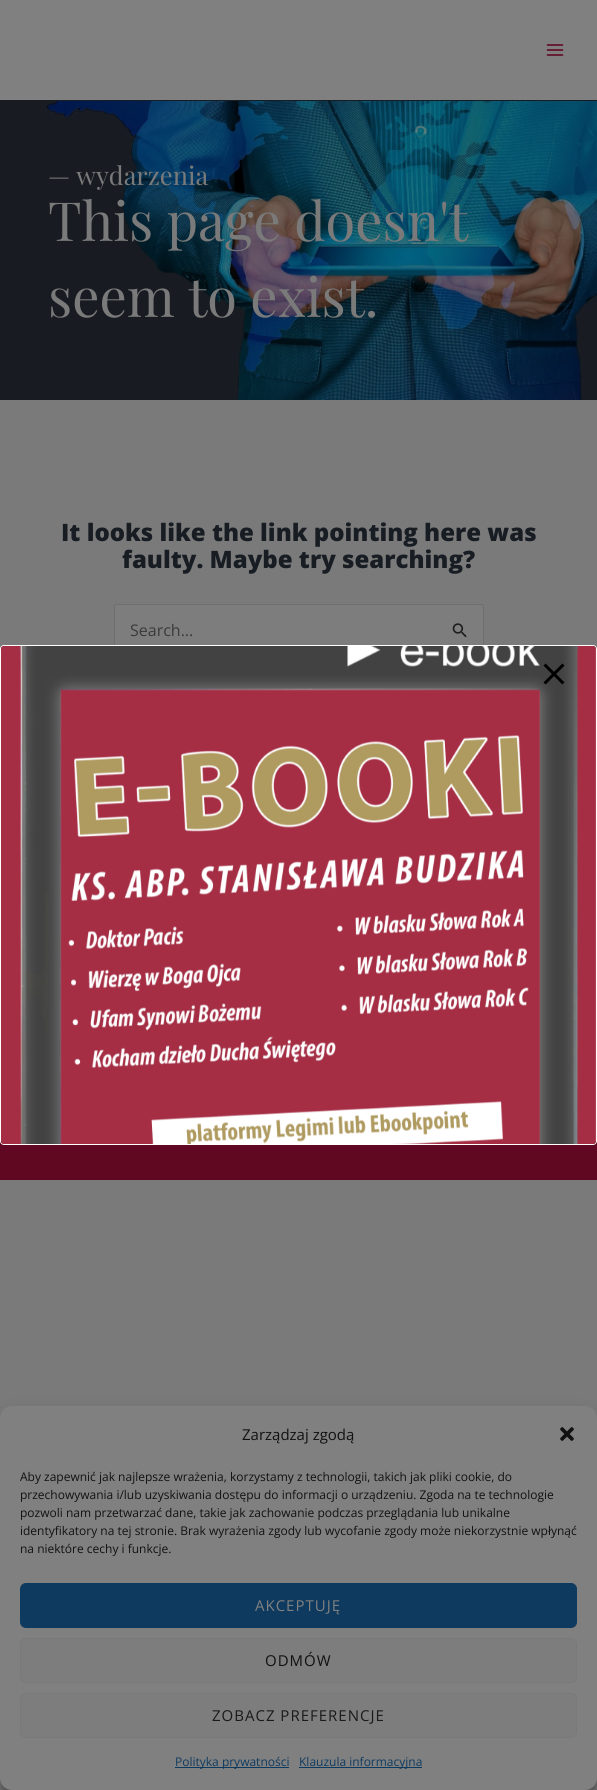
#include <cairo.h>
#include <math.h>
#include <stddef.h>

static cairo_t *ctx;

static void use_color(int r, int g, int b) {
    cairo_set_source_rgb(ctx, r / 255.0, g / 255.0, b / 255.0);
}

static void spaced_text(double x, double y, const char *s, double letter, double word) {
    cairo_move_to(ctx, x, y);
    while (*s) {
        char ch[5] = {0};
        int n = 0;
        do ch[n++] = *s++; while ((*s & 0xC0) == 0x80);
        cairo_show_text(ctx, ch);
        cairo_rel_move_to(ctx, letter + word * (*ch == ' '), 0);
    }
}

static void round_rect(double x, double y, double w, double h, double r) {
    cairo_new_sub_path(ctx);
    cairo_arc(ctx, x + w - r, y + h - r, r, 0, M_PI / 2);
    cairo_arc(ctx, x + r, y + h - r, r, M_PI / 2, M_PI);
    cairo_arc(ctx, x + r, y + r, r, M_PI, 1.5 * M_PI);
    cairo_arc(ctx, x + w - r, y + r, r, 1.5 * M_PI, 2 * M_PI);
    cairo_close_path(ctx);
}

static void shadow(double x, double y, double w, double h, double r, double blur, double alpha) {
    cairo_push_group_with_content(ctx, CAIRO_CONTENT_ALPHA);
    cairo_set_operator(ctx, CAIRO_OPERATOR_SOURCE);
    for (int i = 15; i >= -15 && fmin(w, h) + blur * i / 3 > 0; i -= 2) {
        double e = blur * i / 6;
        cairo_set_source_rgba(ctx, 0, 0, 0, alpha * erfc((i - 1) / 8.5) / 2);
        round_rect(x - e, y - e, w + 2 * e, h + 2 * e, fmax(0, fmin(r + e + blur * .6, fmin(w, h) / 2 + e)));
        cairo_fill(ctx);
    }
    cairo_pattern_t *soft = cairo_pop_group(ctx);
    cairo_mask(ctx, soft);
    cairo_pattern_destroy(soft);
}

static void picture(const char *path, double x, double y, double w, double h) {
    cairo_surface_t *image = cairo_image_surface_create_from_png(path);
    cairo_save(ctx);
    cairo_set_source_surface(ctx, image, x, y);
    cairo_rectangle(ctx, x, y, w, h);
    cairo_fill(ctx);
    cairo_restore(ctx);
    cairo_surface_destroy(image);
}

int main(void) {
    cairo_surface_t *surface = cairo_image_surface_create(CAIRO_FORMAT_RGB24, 597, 1790);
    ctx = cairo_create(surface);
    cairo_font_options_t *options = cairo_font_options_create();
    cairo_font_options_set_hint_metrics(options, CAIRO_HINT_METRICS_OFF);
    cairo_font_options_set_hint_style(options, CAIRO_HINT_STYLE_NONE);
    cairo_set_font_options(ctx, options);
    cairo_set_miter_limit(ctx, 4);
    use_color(122, 122, 122);
    cairo_paint(ctx);
    use_color(128, 128, 128);
    cairo_rectangle(ctx, 0, 0, 597, 100);
    cairo_fill(ctx);
    picture("img1.png", 546, 44, 18, 12);
    picture("img2.png", 0, 100, 597, 300);
    cairo_select_font_face(ctx, "Playfair Display", CAIRO_FONT_SLANT_NORMAL, CAIRO_FONT_WEIGHT_NORMAL);
    cairo_set_font_size(ctx, 25.5);
    use_color(122, 122, 122);
    cairo_move_to(ctx, 48, 185);
    cairo_show_text(ctx, "— wydarzenia");
    cairo_set_font_size(ctx, 54);
    cairo_move_to(ctx, 48, 241);
    cairo_show_text(ctx, "This page doesn't");
    cairo_move_to(ctx, 48, 317);
    cairo_show_text(ctx, "seem to exist.");
    cairo_select_font_face(ctx, "Open Sans ExtraBold", CAIRO_FONT_SLANT_NORMAL, CAIRO_FONT_WEIGHT_NORMAL);
    cairo_set_font_size(ctx, 24);
    use_color(24, 28, 35);
    cairo_move_to(ctx, 61, 541);
    cairo_show_text(ctx, "It looks like the link pointing here was");
    cairo_move_to(ctx, 122, 568);
    cairo_show_text(ctx, "faulty. Maybe try searching?");
    use_color(125, 125, 125);
    round_rect(114.5, 604.5, 369, 53, 1.5);
    cairo_fill_preserve(ctx);
    use_color(111, 111, 111);
    cairo_set_line_width(ctx, 1);
    cairo_stroke(ctx);
    cairo_select_font_face(ctx, "Open Sans", CAIRO_FONT_SLANT_NORMAL, CAIRO_FONT_WEIGHT_NORMAL);
    cairo_set_font_size(ctx, 16);
    use_color(59, 59, 59);
    cairo_move_to(ctx, 130, 636);
    cairo_show_text(ctx, "Search...");
    picture("img3.png", 452, 623, 15, 15);
    use_color(96, 7, 34);
    cairo_rectangle(ctx, 0, 1141, 597, 39);
    cairo_fill(ctx);
    round_rect(0.5, 645.5, 596, 499, 3.5);
    use_color(255, 255, 255);
    cairo_stroke(ctx);
    picture("img4.png", 1, 646, 595, 498);
    picture("img5.png", 543, 663, 22, 22);
    use_color(0, 0, 0);
    shadow(0, 1412, 597, 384, 12, 3, 0.23);
    shadow(0, 1416, 597, 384, 12, 10, 0.19);
    use_color(128, 128, 128);
    round_rect(0, 1406, 597, 384, 12);
    cairo_fill(ctx);
    cairo_set_font_size(ctx, 15);
    use_color(17, 17, 17);
    cairo_move_to(ctx, 242, 1440);
    cairo_show_text(ctx, "Zarządzaj zgodą");
    picture("img6.png", 560, 1427, 14, 14);
    cairo_set_font_size(ctx, 12);
    cairo_move_to(ctx, 20, 1481);
    cairo_show_text(ctx, "Aby zapewnić jak najlepsze wrażenia, korzystamy z technologii, takich jak pliki cookie, do");
    cairo_move_to(ctx, 20, 1499);
    cairo_show_text(ctx, "przechowywania i/lub uzyskiwania dostępu do informacji o urządzeniu. Zgoda na te technologie");
    cairo_move_to(ctx, 20, 1517);
    cairo_show_text(ctx, "pozwoli nam przetwarzać dane, takie jak zachowanie podczas przeglądania lub unikalne");
    cairo_move_to(ctx, 20, 1535);
    cairo_show_text(ctx, "identyfikatory na tej stronie. Brak wyrażenia zgody lub wycofanie zgody może niekorzystnie wpłynąć");
    cairo_move_to(ctx, 20, 1553);
    cairo_show_text(ctx, "na niektóre cechy i funkcje.");
    use_color(15, 58, 95);
    round_rect(20.5, 1583.5, 556, 44, 5.5);
    cairo_fill_preserve(ctx);
    cairo_stroke(ctx);
    cairo_set_font_size(ctx, 15);
    use_color(128, 128, 128);
    spaced_text(255, 1611, "AKCEPTUJĘ", 1, 0);
    use_color(125, 125, 125);
    round_rect(20.5, 1638.5, 556, 44, 5.5);
    cairo_fill_preserve(ctx);
    use_color(121, 121, 121);
    cairo_stroke(ctx);
    use_color(17, 17, 17);
    spaced_text(265, 1666, "ODMÓW", 1, 0);
    use_color(125, 125, 125);
    round_rect(20.5, 1693.5, 556, 44, 5.5);
    cairo_fill_preserve(ctx);
    use_color(121, 121, 121);
    cairo_stroke(ctx);
    use_color(26, 26, 26);
    spaced_text(212, 1721, "ZOBACZ PREFERENCJE", 1, 0);
    use_color(15, 58, 95);
    cairo_rectangle(ctx, 175, 1767, 114, 1);
    cairo_fill(ctx);
    cairo_set_font_size(ctx, 12);
    cairo_move_to(ctx, 175, 1766);
    cairo_show_text(ctx, "Polityka prywatności");
    cairo_rectangle(ctx, 299, 1767, 123, 1);
    cairo_fill(ctx);
    cairo_move_to(ctx, 299, 1766);
    cairo_show_text(ctx, "Klauzula informacyjna");
    cairo_surface_write_to_png(surface, "result.png");
    cairo_font_options_destroy(options);
    cairo_destroy(ctx);
    cairo_surface_destroy(surface);
    return 0;
}
